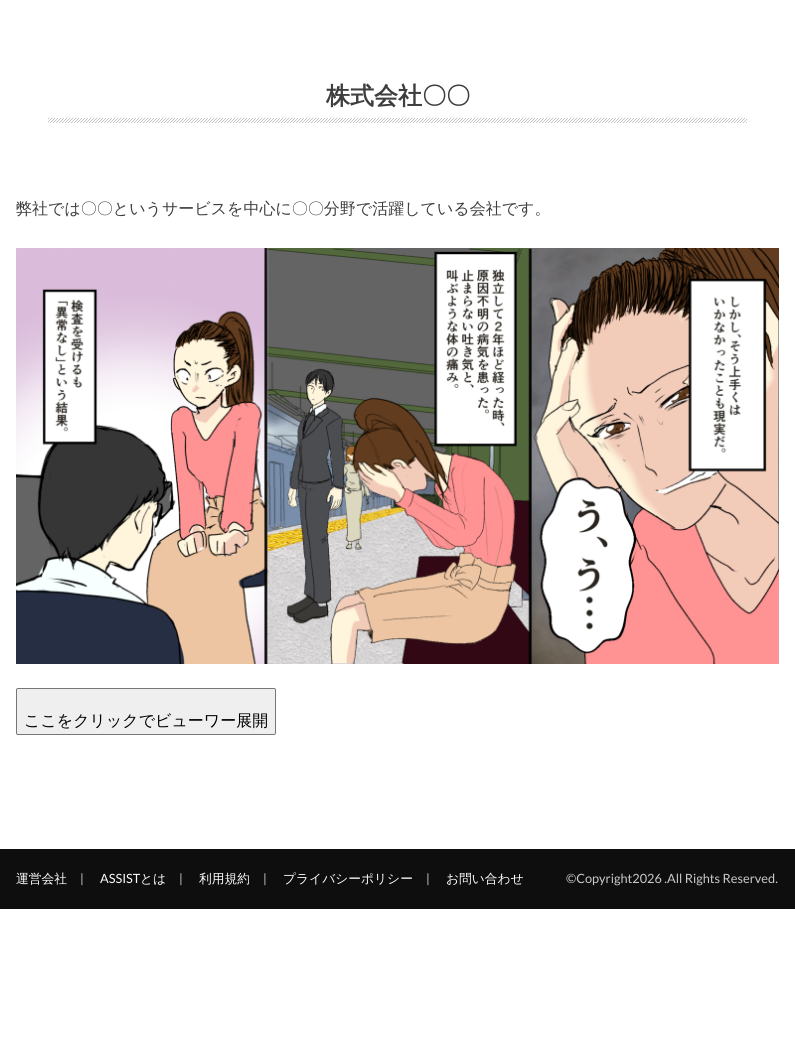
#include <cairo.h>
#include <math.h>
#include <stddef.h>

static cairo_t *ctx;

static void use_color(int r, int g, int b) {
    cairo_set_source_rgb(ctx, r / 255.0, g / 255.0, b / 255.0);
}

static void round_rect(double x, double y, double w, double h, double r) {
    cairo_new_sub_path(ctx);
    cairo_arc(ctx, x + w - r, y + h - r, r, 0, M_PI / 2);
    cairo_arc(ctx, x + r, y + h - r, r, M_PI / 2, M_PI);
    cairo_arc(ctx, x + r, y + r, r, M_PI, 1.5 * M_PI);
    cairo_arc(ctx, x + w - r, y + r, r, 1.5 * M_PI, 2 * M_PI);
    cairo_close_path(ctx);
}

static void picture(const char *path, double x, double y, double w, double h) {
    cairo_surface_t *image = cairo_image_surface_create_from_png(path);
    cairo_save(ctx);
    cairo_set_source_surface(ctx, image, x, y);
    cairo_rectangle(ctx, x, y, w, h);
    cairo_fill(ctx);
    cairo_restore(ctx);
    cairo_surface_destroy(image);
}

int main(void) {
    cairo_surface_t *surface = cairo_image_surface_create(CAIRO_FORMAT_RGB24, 795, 1051);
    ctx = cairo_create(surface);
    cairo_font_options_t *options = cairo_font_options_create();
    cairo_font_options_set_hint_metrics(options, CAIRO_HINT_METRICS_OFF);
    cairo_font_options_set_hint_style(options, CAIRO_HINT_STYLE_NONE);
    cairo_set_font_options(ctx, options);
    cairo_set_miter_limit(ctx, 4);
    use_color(255, 255, 255);
    cairo_paint(ctx);
    picture("img1.png", 48, 118, 699, 5);
    cairo_select_font_face(ctx, "WenQuanYi Zen Hei", CAIRO_FONT_SLANT_NORMAL, CAIRO_FONT_WEIGHT_BOLD);
    cairo_set_font_size(ctx, 24);
    use_color(62, 62, 62);
    cairo_move_to(ctx, 326, 104);
    cairo_show_text(ctx, "株式会社〇〇");
    cairo_select_font_face(ctx, "WenQuanYi Zen Hei Medium", CAIRO_FONT_SLANT_NORMAL, CAIRO_FONT_WEIGHT_NORMAL);
    cairo_set_font_size(ctx, 16);
    cairo_move_to(ctx, 16, 214);
    cairo_show_text(ctx, "弊社では〇〇というサービスを中心に〇〇分野で活躍している会社です。");
    picture("img2.png", 16, 248, 763, 416);
    use_color(239, 239, 239);
    round_rect(16.5, 688.5, 259, 46, 1.5);
    cairo_fill_preserve(ctx);
    use_color(118, 118, 118);
    cairo_set_line_width(ctx, 1);
    cairo_stroke(ctx);
    use_color(0, 0, 0);
    cairo_move_to(ctx, 24, 726);
    cairo_show_text(ctx, "ここをクリックでビューワー展開");
    use_color(14, 14, 14);
    cairo_rectangle(ctx, 0, 849, 795, 60);
    cairo_fill(ctx);
    cairo_set_font_size(ctx, 12.75);
    use_color(255, 255, 255);
    cairo_move_to(ctx, 16, 883);
    cairo_show_text(ctx, "運営会社");
    cairo_select_font_face(ctx, "Lato", CAIRO_FONT_SLANT_NORMAL, CAIRO_FONT_WEIGHT_NORMAL);
    use_color(202, 202, 202);
    cairo_move_to(ctx, 80, 883);
    cairo_show_text(ctx, "|");
    use_color(255, 255, 255);
    cairo_move_to(ctx, 100, 883);
    cairo_show_text(ctx, "ASSIST");
    cairo_select_font_face(ctx, "WenQuanYi Zen Hei Medium", CAIRO_FONT_SLANT_NORMAL, CAIRO_FONT_WEIGHT_NORMAL);
    cairo_move_to(ctx, 140, 883);
    cairo_show_text(ctx, "とは");
    cairo_select_font_face(ctx, "Lato", CAIRO_FONT_SLANT_NORMAL, CAIRO_FONT_WEIGHT_NORMAL);
    use_color(202, 202, 202);
    cairo_move_to(ctx, 179, 883);
    cairo_show_text(ctx, "|");
    cairo_select_font_face(ctx, "WenQuanYi Zen Hei Medium", CAIRO_FONT_SLANT_NORMAL, CAIRO_FONT_WEIGHT_NORMAL);
    use_color(255, 255, 255);
    cairo_move_to(ctx, 199, 883);
    cairo_show_text(ctx, "利用規約");
    cairo_select_font_face(ctx, "Lato", CAIRO_FONT_SLANT_NORMAL, CAIRO_FONT_WEIGHT_NORMAL);
    use_color(202, 202, 202);
    cairo_move_to(ctx, 263, 883);
    cairo_show_text(ctx, "|");
    cairo_select_font_face(ctx, "WenQuanYi Zen Hei Medium", CAIRO_FONT_SLANT_NORMAL, CAIRO_FONT_WEIGHT_NORMAL);
    use_color(255, 255, 255);
    cairo_move_to(ctx, 283, 883);
    cairo_show_text(ctx, "プライバシーポリシー");
    cairo_select_font_face(ctx, "Lato", CAIRO_FONT_SLANT_NORMAL, CAIRO_FONT_WEIGHT_NORMAL);
    use_color(202, 202, 202);
    cairo_move_to(ctx, 426, 883);
    cairo_show_text(ctx, "|");
    cairo_select_font_face(ctx, "WenQuanYi Zen Hei Medium", CAIRO_FONT_SLANT_NORMAL, CAIRO_FONT_WEIGHT_NORMAL);
    use_color(255, 255, 255);
    cairo_move_to(ctx, 446, 883);
    cairo_show_text(ctx, "お問い合わせ");
    cairo_select_font_face(ctx, "Lato", CAIRO_FONT_SLANT_NORMAL, CAIRO_FONT_WEIGHT_NORMAL);
    use_color(202, 202, 202);
    cairo_move_to(ctx, 566, 883);
    cairo_show_text(ctx, "©Copyright2026 .All Rights Reserved.");
    cairo_surface_write_to_png(surface, "result.png");
    cairo_font_options_destroy(options);
    cairo_destroy(ctx);
    cairo_surface_destroy(surface);
    return 0;
}
